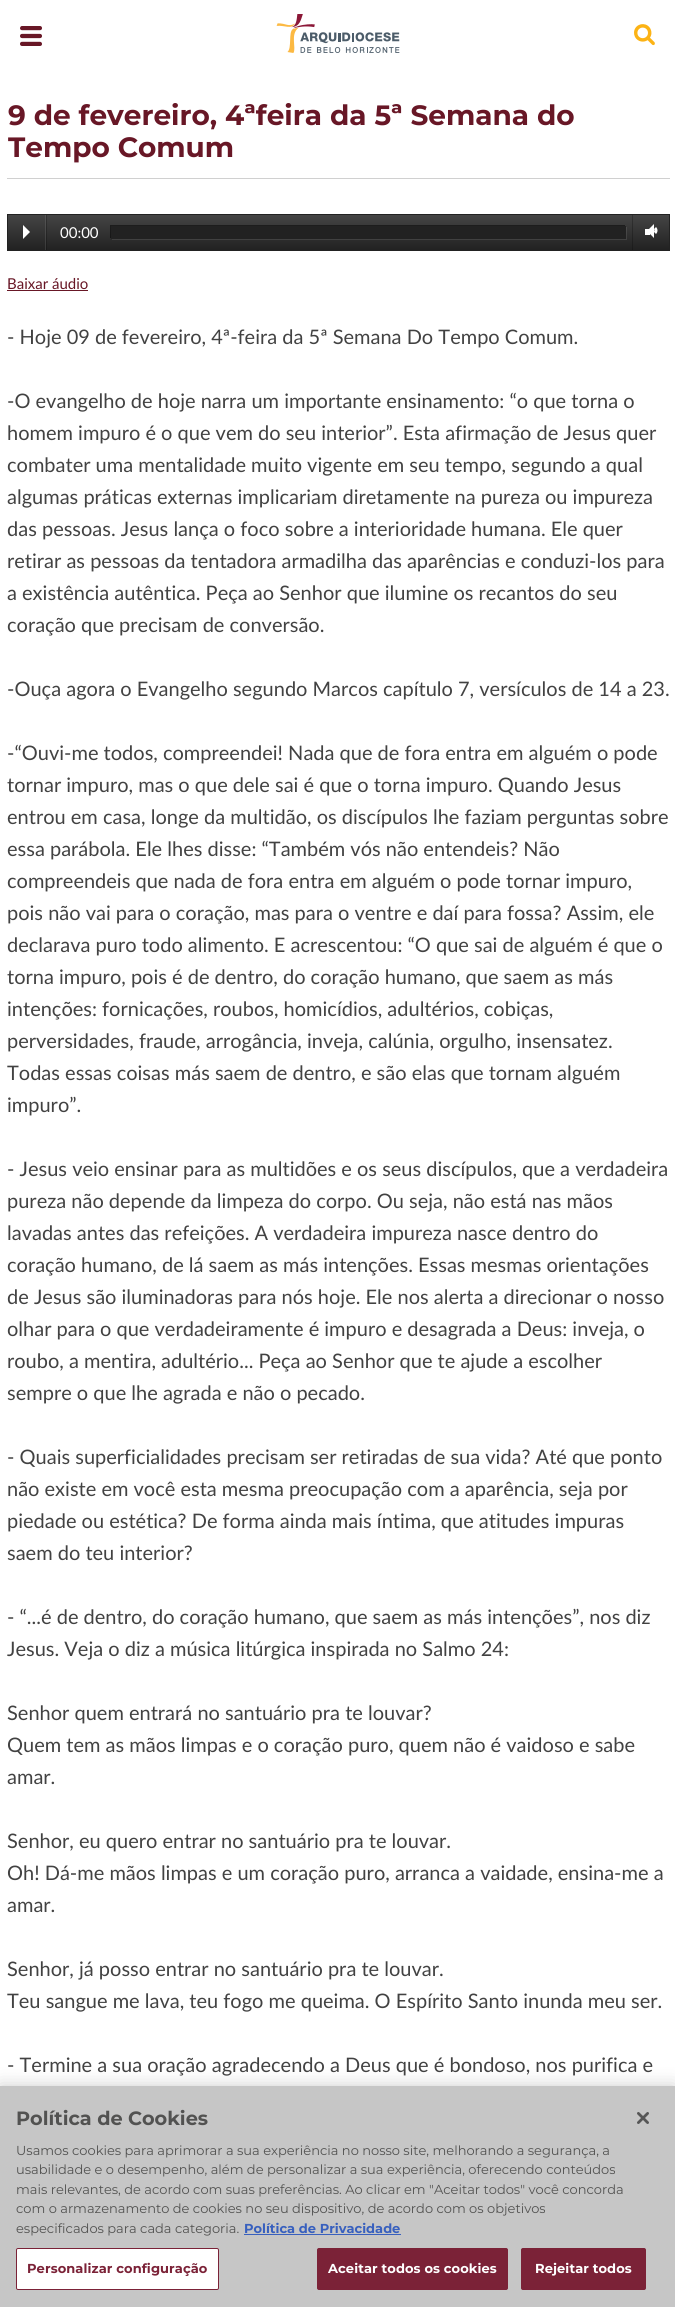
#include <cairo.h>
#include <math.h>
#include <stddef.h>

static cairo_t *ctx;

static void use_color(int r, int g, int b) {
    cairo_set_source_rgb(ctx, r / 255.0, g / 255.0, b / 255.0);
}

static void spaced_text(double x, double y, const char *s, double letter, double word) {
    cairo_move_to(ctx, x, y);
    while (*s) {
        char ch[5] = {0};
        int n = 0;
        do ch[n++] = *s++; while ((*s & 0xC0) == 0x80);
        cairo_show_text(ctx, ch);
        cairo_rel_move_to(ctx, letter + word * (*ch == ' '), 0);
    }
}

static void round_rect(double x, double y, double w, double h, double r) {
    cairo_new_sub_path(ctx);
    cairo_arc(ctx, x + w - r, y + h - r, r, 0, M_PI / 2);
    cairo_arc(ctx, x + r, y + h - r, r, M_PI / 2, M_PI);
    cairo_arc(ctx, x + r, y + r, r, M_PI, 1.5 * M_PI);
    cairo_arc(ctx, x + w - r, y + r, r, 1.5 * M_PI, 2 * M_PI);
    cairo_close_path(ctx);
}

static void shadow(double x, double y, double w, double h, double r, double blur, double alpha) {
    cairo_push_group_with_content(ctx, CAIRO_CONTENT_ALPHA);
    cairo_set_operator(ctx, CAIRO_OPERATOR_SOURCE);
    for (int i = 15; i >= -15 && fmin(w, h) + blur * i / 3 > 0; i -= 2) {
        double e = blur * i / 6;
        cairo_set_source_rgba(ctx, 0, 0, 0, alpha * erfc((i - 1) / 8.5) / 2);
        round_rect(x - e, y - e, w + 2 * e, h + 2 * e, fmax(0, fmin(r + e + blur * .6, fmin(w, h) / 2 + e)));
        cairo_fill(ctx);
    }
    cairo_pattern_t *soft = cairo_pop_group(ctx);
    cairo_mask(ctx, soft);
    cairo_pattern_destroy(soft);
}

static void picture(const char *path, double x, double y, double w, double h) {
    cairo_surface_t *image = cairo_image_surface_create_from_png(path);
    cairo_save(ctx);
    cairo_set_source_surface(ctx, image, x, y);
    cairo_rectangle(ctx, x, y, w, h);
    cairo_fill(ctx);
    cairo_restore(ctx);
    cairo_surface_destroy(image);
}

int main(void) {
    cairo_surface_t *surface = cairo_image_surface_create(CAIRO_FORMAT_RGB24, 675, 2307);
    ctx = cairo_create(surface);
    cairo_font_options_t *options = cairo_font_options_create();
    cairo_font_options_set_hint_metrics(options, CAIRO_HINT_METRICS_OFF);
    cairo_font_options_set_hint_style(options, CAIRO_HINT_STYLE_NONE);
    cairo_set_font_options(ctx, options);
    cairo_set_miter_limit(ctx, 4);
    cairo_pattern_t *gradient;
    use_color(255, 255, 255);
    cairo_paint(ctx);
    picture("img1.png", 20, 26, 22, 20);
    picture("img2.png", 276, 14, 124, 39);
    picture("img3.png", 634, 24, 21, 22);
    use_color(208, 208, 208);
    cairo_rectangle(ctx, 7, 178, 663, 1);
    cairo_fill(ctx);
    cairo_select_font_face(ctx, "Montserrat", CAIRO_FONT_SLANT_NORMAL, CAIRO_FONT_WEIGHT_BOLD);
    cairo_set_font_size(ctx, 27.95);
    use_color(104, 23, 38);
    cairo_move_to(ctx, 8, 125);
    cairo_show_text(ctx, "9 de fevereiro, 4ªfeira da 5ª Semana do");
    cairo_move_to(ctx, 8, 157);
    cairo_show_text(ctx, "Tempo Comum");
    gradient = cairo_pattern_create_linear(339, 215, 339, 250);
    cairo_pattern_add_color_stop_rgba(gradient, 0, 0.267, 0.267, 0.267, 1);
    cairo_pattern_add_color_stop_rgba(gradient, 1, 0.133, 0.133, 0.133, 1);
    cairo_set_source(ctx, gradient);
    cairo_pattern_destroy(gradient);
    cairo_rectangle(ctx, 8, 215, 661, 35);
    cairo_fill(ctx);
    gradient = cairo_pattern_create_linear(339, 215, 339, 250);
    cairo_pattern_add_color_stop_rgba(gradient, 0, 0.2, 0.2, 0.2, 1);
    cairo_pattern_add_color_stop_rgba(gradient, 1, 0.102, 0.102, 0.102, 1);
    cairo_set_source(ctx, gradient);
    cairo_pattern_destroy(gradient);
    cairo_rectangle(ctx, 632, 215, 1, 35);
    cairo_fill(ctx);
    cairo_rectangle(ctx, 46, 215, 1, 35);
    cairo_fill(ctx);
    gradient = cairo_pattern_create_linear(339, 215, 339, 250);
    cairo_pattern_add_color_stop_rgba(gradient, 0, 0.341, 0.341, 0.341, 1);
    cairo_pattern_add_color_stop_rgba(gradient, 1, 0.22, 0.22, 0.22, 1);
    cairo_set_source(ctx, gradient);
    cairo_pattern_destroy(gradient);
    cairo_rectangle(ctx, 45, 215, 1, 35);
    cairo_fill(ctx);
    cairo_rectangle(ctx, 7.5, 214.5, 662, 36);
    use_color(34, 34, 34);
    cairo_set_line_width(ctx, 1);
    cairo_stroke(ctx);
    use_color(255, 255, 255);
    cairo_new_path(ctx);
    cairo_move_to(ctx, 23, 239);
    cairo_line_to(ctx, 23, 225);
    cairo_line_to(ctx, 30, 232);
    cairo_close_path(ctx);
    cairo_fill(ctx);
    cairo_select_font_face(ctx, "Lato", CAIRO_FONT_SLANT_NORMAL, CAIRO_FONT_WEIGHT_NORMAL);
    cairo_set_font_size(ctx, 15);
    cairo_move_to(ctx, 60, 238);
    cairo_show_text(ctx, "00:00");
    cairo_set_source_rgba(ctx, 1, 1, 1, 0.1);
    cairo_new_path(ctx);
    cairo_move_to(ctx, 112, 239);
    cairo_line_to(ctx, 112, 240);
    cairo_line_to(ctx, 627, 240);
    cairo_line_to(ctx, 627, 227);
    cairo_line_to(ctx, 626, 227);
    cairo_line_to(ctx, 626, 239);
    cairo_close_path(ctx);
    cairo_fill(ctx);
    cairo_set_source_rgba(ctx, 0, 0, 0, 0.5);
    cairo_new_path(ctx);
    cairo_move_to(ctx, 110, 225);
    cairo_line_to(ctx, 110, 238);
    cairo_line_to(ctx, 111, 238);
    cairo_line_to(ctx, 111, 226);
    cairo_line_to(ctx, 625, 226);
    cairo_line_to(ctx, 625, 225);
    cairo_close_path(ctx);
    cairo_fill(ctx);
    use_color(34, 34, 34);
    cairo_rectangle(ctx, 111, 226, 515, 13);
    cairo_fill(ctx);
    use_color(255, 255, 255);
    cairo_rectangle(ctx, 645, 229, 5, 6);
    cairo_fill(ctx);
    cairo_set_fill_rule(ctx, CAIRO_FILL_RULE_EVEN_ODD);
    cairo_new_path(ctx);
    cairo_move_to(ctx, 656, 227);
    cairo_curve_to(ctx, 658, 229, 658, 232, 656, 234);
    cairo_line_to(ctx, 652.5, 230.5);
    cairo_close_path(ctx);
    cairo_move_to(ctx, 654, 229);
    cairo_curve_to(ctx, 654.5, 230, 654.5, 231, 654, 231.5);
    cairo_line_to(ctx, 652.5, 230.5);
    cairo_close_path(ctx);
    cairo_fill(ctx);
    cairo_set_fill_rule(ctx, CAIRO_FILL_RULE_WINDING);
    cairo_new_path(ctx);
    cairo_move_to(ctx, 654, 224);
    cairo_line_to(ctx, 654, 238);
    cairo_line_to(ctx, 647, 231);
    cairo_close_path(ctx);
    cairo_fill(ctx);
    use_color(104, 23, 38);
    cairo_move_to(ctx, 7, 289);
    cairo_show_text(ctx, "Baixar áudio");
    cairo_rectangle(ctx, 7, 290, 81, 1);
    cairo_fill(ctx);
    cairo_set_font_size(ctx, 20);
    use_color(66, 66, 66);
    cairo_move_to(ctx, 7, 344);
    cairo_show_text(ctx, "- Hoje 09 de fevereiro, 4ª-feira da 5ª Semana Do Tempo Comum.");
    cairo_move_to(ctx, 7, 408);
    cairo_show_text(ctx, "-O evangelho de hoje narra um importante ensinamento: “o que torna o");
    cairo_move_to(ctx, 7, 440);
    cairo_show_text(ctx, "homem impuro é o que vem do seu interior”. Esta afirmação de Jesus quer");
    cairo_move_to(ctx, 7, 472);
    cairo_show_text(ctx, "combater uma mentalidade muito vigente em seu tempo, segundo a qual");
    cairo_move_to(ctx, 7, 504);
    cairo_show_text(ctx, "algumas práticas externas implicariam diretamente na pureza ou impureza");
    cairo_move_to(ctx, 7, 536);
    cairo_show_text(ctx, "das pessoas. Jesus lança o foco sobre a interioridade humana. Ele quer");
    cairo_move_to(ctx, 7, 568);
    cairo_show_text(ctx, "retirar as pessoas da tentadora armadilha das aparências e conduzi-los para");
    cairo_move_to(ctx, 7, 600);
    cairo_show_text(ctx, "a existência autêntica. Peça ao Senhor que ilumine os recantos do seu");
    cairo_move_to(ctx, 7, 632);
    cairo_show_text(ctx, "coração que precisam de conversão.");
    cairo_move_to(ctx, 7, 696);
    cairo_show_text(ctx, "-Ouça agora o Evangelho segundo Marcos capítulo 7, versículos de 14 a 23.");
    cairo_move_to(ctx, 7, 760);
    cairo_show_text(ctx, "-“Ouvi-me todos, compreendei! Nada que de fora entra em alguém o pode");
    cairo_move_to(ctx, 7, 792);
    cairo_show_text(ctx, "tornar impuro, mas o que dele sai é que o torna impuro. Quando Jesus");
    cairo_move_to(ctx, 7, 824);
    cairo_show_text(ctx, "entrou em casa, longe da multidão, os discípulos lhe faziam perguntas sobre");
    cairo_move_to(ctx, 7, 856);
    cairo_show_text(ctx, "essa parábola. Ele lhes disse: “Também vós não entendeis? Não");
    cairo_move_to(ctx, 7, 888);
    cairo_show_text(ctx, "compreendeis que nada de fora entra em alguém o pode tornar impuro,");
    cairo_move_to(ctx, 7, 920);
    cairo_show_text(ctx, "pois não vai para o coração, mas para o ventre e daí para fossa? Assim, ele");
    cairo_move_to(ctx, 7, 952);
    cairo_show_text(ctx, "declarava puro todo alimento. E acrescentou: “O que sai de alguém é que o");
    cairo_move_to(ctx, 7, 984);
    cairo_show_text(ctx, "torna impuro, pois é de dentro, do coração humano, que saem as más");
    cairo_move_to(ctx, 7, 1016);
    cairo_show_text(ctx, "intenções: fornicações, roubos, homicídios, adultérios, cobiças,");
    cairo_move_to(ctx, 7, 1048);
    cairo_show_text(ctx, "perversidades, fraude, arrogância, inveja, calúnia, orgulho, insensatez.");
    cairo_move_to(ctx, 7, 1080);
    cairo_show_text(ctx, "Todas essas coisas más saem de dentro, e são elas que tornam alguém");
    cairo_move_to(ctx, 7, 1112);
    cairo_show_text(ctx, "impuro”.");
    cairo_move_to(ctx, 7, 1176);
    cairo_show_text(ctx, "- Jesus veio ensinar para as multidões e os seus discípulos, que a verdadeira");
    cairo_move_to(ctx, 7, 1208);
    cairo_show_text(ctx, "pureza não depende da limpeza do corpo. Ou seja, não está nas mãos");
    cairo_move_to(ctx, 7, 1240);
    cairo_show_text(ctx, "lavadas antes das refeições. A verdadeira impureza nasce dentro do");
    cairo_move_to(ctx, 7, 1272);
    cairo_show_text(ctx, "coração humano, de lá saem as más intenções. Essas mesmas orientações");
    cairo_move_to(ctx, 7, 1304);
    cairo_show_text(ctx, "de Jesus são iluminadoras para nós hoje. Ele nos alerta a direcionar o nosso");
    cairo_move_to(ctx, 7, 1336);
    cairo_show_text(ctx, "olhar para o que verdadeiramente é impuro e desagrada a Deus: inveja, o");
    cairo_move_to(ctx, 7, 1368);
    cairo_show_text(ctx, "roubo, a mentira, adultério... Peça ao Senhor que te ajude a escolher");
    cairo_move_to(ctx, 7, 1400);
    cairo_show_text(ctx, "sempre o que lhe agrada e não o pecado.");
    cairo_move_to(ctx, 7, 1464);
    cairo_show_text(ctx, "- Quais superficialidades precisam ser retiradas de sua vida? Até que ponto");
    cairo_move_to(ctx, 7, 1496);
    cairo_show_text(ctx, "não existe em você esta mesma preocupação com a aparência, seja por");
    cairo_move_to(ctx, 7, 1528);
    cairo_show_text(ctx, "piedade ou estética? De forma ainda mais íntima, que atitudes impuras");
    cairo_move_to(ctx, 7, 1560);
    cairo_show_text(ctx, "saem do teu interior?");
    cairo_move_to(ctx, 7, 1624);
    cairo_show_text(ctx, "- “...é de dentro, do coração humano, que saem as más intenções”, nos diz");
    cairo_move_to(ctx, 7, 1656);
    cairo_show_text(ctx, "Jesus. Veja o diz a música litúrgica inspirada no Salmo 24:");
    cairo_move_to(ctx, 7, 1720);
    cairo_show_text(ctx, "Senhor quem entrará no santuário pra te louvar?");
    cairo_move_to(ctx, 7, 1752);
    cairo_show_text(ctx, "Quem tem as mãos limpas e o coração puro, quem não é vaidoso e sabe");
    cairo_move_to(ctx, 7, 1784);
    cairo_show_text(ctx, "amar.");
    cairo_move_to(ctx, 7, 1848);
    cairo_show_text(ctx, "Senhor, eu quero entrar no santuário pra te louvar.");
    cairo_move_to(ctx, 7, 1880);
    cairo_show_text(ctx, "Oh! Dá-me mãos limpas e um coração puro, arranca a vaidade, ensina-me a");
    cairo_move_to(ctx, 7, 1912);
    cairo_show_text(ctx, "amar.");
    cairo_move_to(ctx, 7, 1976);
    cairo_show_text(ctx, "Senhor, já posso entrar no santuário pra te louvar.");
    cairo_move_to(ctx, 7, 2008);
    cairo_show_text(ctx, "Teu sangue me lava, teu fogo me queima. O Espírito Santo inunda meu ser.");
    cairo_move_to(ctx, 7, 2072);
    cairo_show_text(ctx, "- Termine a sua oração agradecendo a Deus que é bondoso, nos purifica e");
    use_color(0, 0, 0);
    shadow(0, 2086, 675, 221, 0, 9, 0.2);
    use_color(198, 198, 198);
    cairo_rectangle(ctx, 0, 2086, 675, 221);
    cairo_fill(ctx);
    cairo_select_font_face(ctx, "Montserrat", CAIRO_FONT_SLANT_NORMAL, CAIRO_FONT_WEIGHT_BOLD);
    cairo_set_font_size(ctx, 19.25);
    use_color(82, 82, 81);
    cairo_move_to(ctx, 16, 2125);
    cairo_show_text(ctx, "Política de Cookies");
    cairo_select_font_face(ctx, "Montserrat", CAIRO_FONT_SLANT_NORMAL, CAIRO_FONT_WEIGHT_NORMAL);
    cairo_set_font_size(ctx, 13);
    cairo_move_to(ctx, 16, 2155);
    cairo_show_text(ctx, "Usamos cookies para aprimorar a sua experiência no nosso site, melhorando a segurança, a");
    cairo_move_to(ctx, 16, 2174);
    cairo_show_text(ctx, "usabilidade e o desempenho, além de personalizar a sua experiência, oferecendo conteúdos");
    cairo_move_to(ctx, 16, 2194);
    cairo_show_text(ctx, "mais relevantes, de acordo com suas preferências. Ao clicar em \"Aceitar todos\" você concorda");
    cairo_move_to(ctx, 16, 2213);
    cairo_show_text(ctx, "com o armazenamento de cookies no seu dispositivo, de acordo com os objetivos");
    cairo_move_to(ctx, 16, 2233);
    cairo_show_text(ctx, "especificados para cada categoria.");
    cairo_select_font_face(ctx, "Montserrat", CAIRO_FONT_SLANT_NORMAL, CAIRO_FONT_WEIGHT_BOLD);
    use_color(56, 96, 190);
    cairo_move_to(ctx, 244, 2233);
    cairo_show_text(ctx, "Política de Privacidade");
    cairo_rectangle(ctx, 244, 2234, 157, 1);
    cairo_fill(ctx);
    use_color(255, 255, 255);
    round_rect(16.5, 2248.5, 202, 41, 1.5);
    cairo_fill_preserve(ctx);
    use_color(123, 34, 55);
    cairo_stroke(ctx);
    spaced_text(27, 2273, "Personalizar configuração", 0.1, 0);
    round_rect(317.5, 2248.5, 190, 41, 1.5);
    cairo_fill_preserve(ctx);
    cairo_stroke(ctx);
    use_color(255, 255, 255);
    spaced_text(328, 2273, "Aceitar todos os cookies", 0.1, 0);
    use_color(123, 34, 55);
    round_rect(521.5, 2248.5, 124, 41, 1.5);
    cairo_fill_preserve(ctx);
    cairo_stroke(ctx);
    use_color(255, 255, 255);
    spaced_text(535, 2273, "Rejeitar todos", 0.1, 0);
    picture("img4.png", 637, 2112, 12, 12);
    cairo_surface_write_to_png(surface, "result.png");
    cairo_font_options_destroy(options);
    cairo_destroy(ctx);
    cairo_surface_destroy(surface);
    return 0;
}
